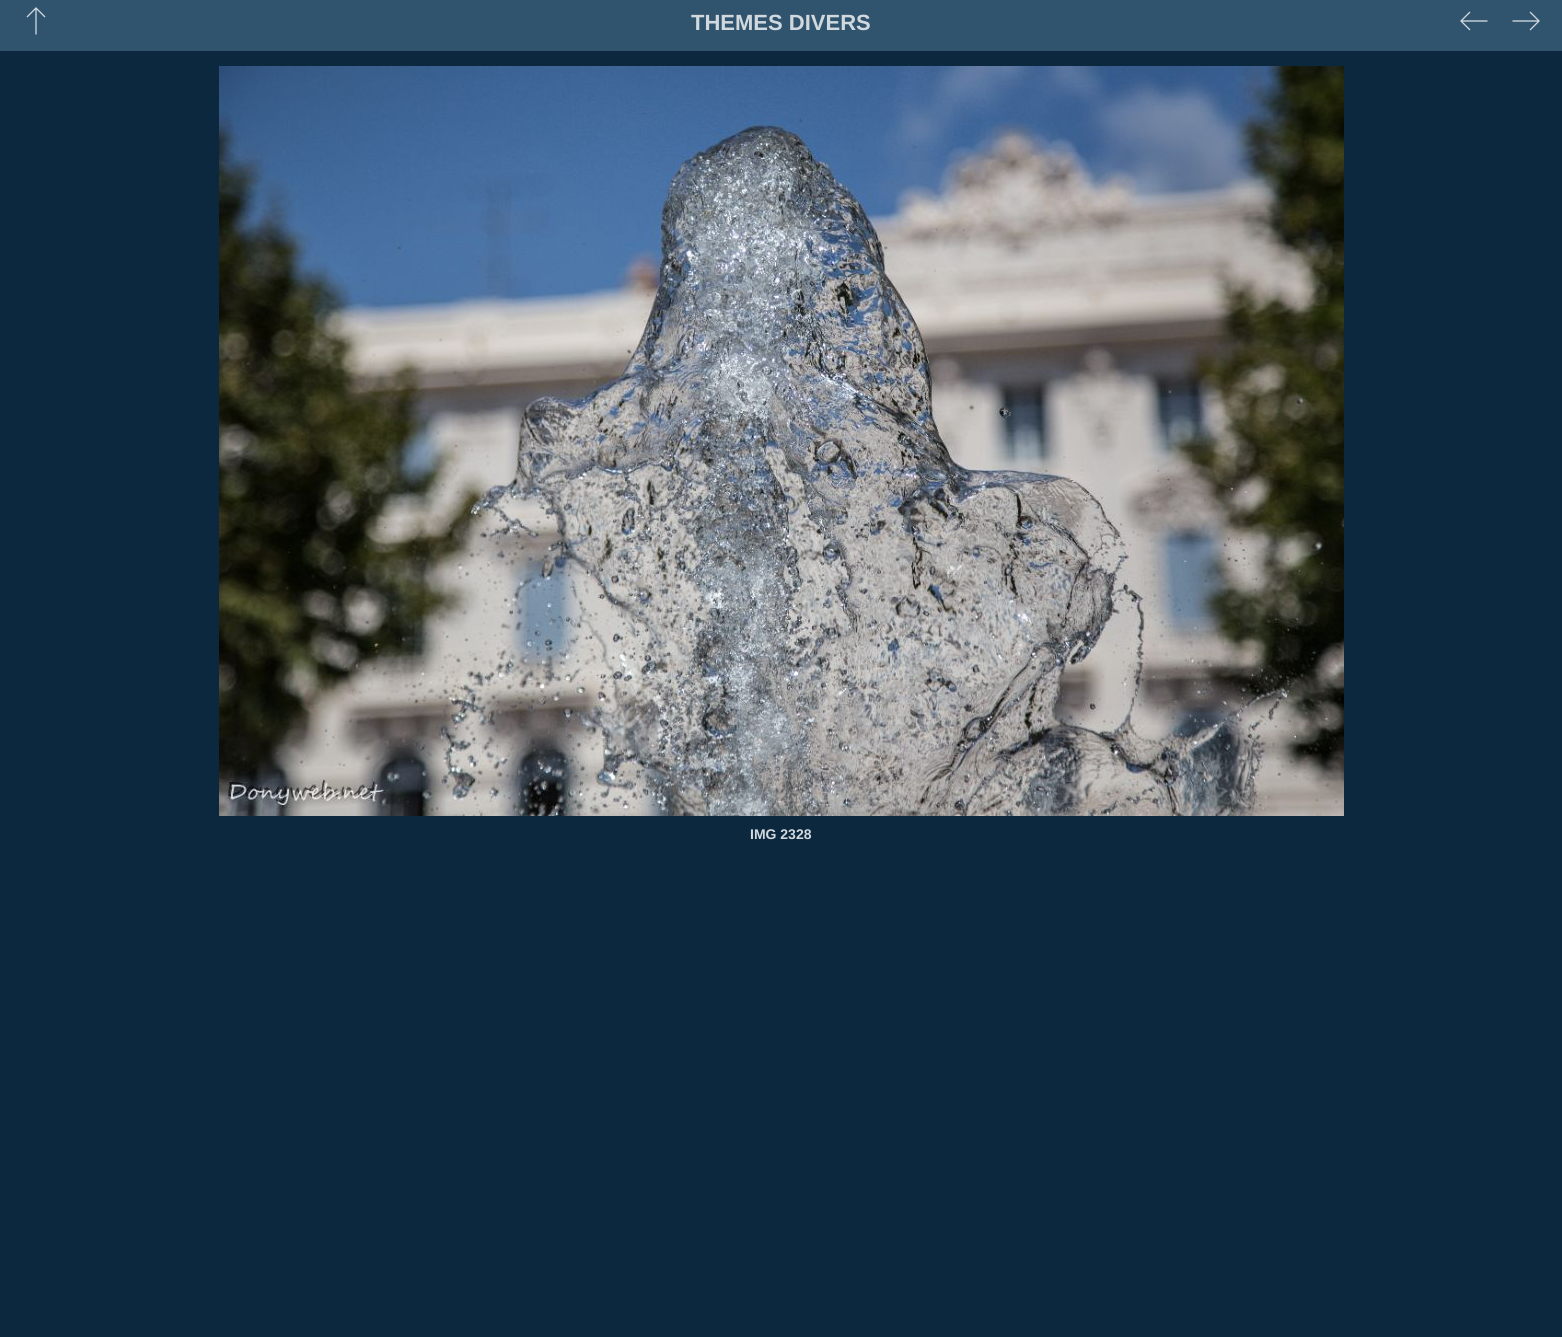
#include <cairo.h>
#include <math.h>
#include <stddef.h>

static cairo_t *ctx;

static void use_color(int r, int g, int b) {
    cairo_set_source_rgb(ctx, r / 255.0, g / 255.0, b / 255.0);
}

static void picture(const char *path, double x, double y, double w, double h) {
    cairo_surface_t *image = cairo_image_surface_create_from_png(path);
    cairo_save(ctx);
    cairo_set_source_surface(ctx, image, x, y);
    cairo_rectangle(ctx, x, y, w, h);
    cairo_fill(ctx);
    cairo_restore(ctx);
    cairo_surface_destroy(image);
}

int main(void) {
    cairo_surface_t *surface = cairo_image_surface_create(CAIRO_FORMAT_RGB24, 1562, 1337);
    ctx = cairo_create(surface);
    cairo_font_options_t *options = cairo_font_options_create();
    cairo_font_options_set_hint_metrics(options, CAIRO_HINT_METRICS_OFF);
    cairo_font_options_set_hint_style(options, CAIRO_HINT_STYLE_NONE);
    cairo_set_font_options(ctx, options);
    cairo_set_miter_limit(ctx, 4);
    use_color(12, 40, 62);
    cairo_paint(ctx);
    use_color(49, 84, 110);
    cairo_rectangle(ctx, 0, 0, 1562, 51);
    cairo_fill(ctx);
    cairo_new_path(ctx);
    cairo_move_to(ctx, 36, 34.5);
    cairo_line_to(ctx, 36, 8);
    cairo_move_to(ctx, 27, 17);
    cairo_line_to(ctx, 36, 8);
    cairo_line_to(ctx, 45, 17);
    use_color(209, 217, 223);
    cairo_set_line_width(ctx, 1.3);
    cairo_stroke(ctx);
    cairo_select_font_face(ctx, "Liberation Sans", CAIRO_FONT_SLANT_NORMAL, CAIRO_FONT_WEIGHT_BOLD);
    cairo_set_font_size(ctx, 22);
    cairo_move_to(ctx, 691, 30);
    cairo_show_text(ctx, "THEMES DIVERS");
    cairo_new_path(ctx);
    cairo_move_to(ctx, 1487.5, 21);
    cairo_line_to(ctx, 1461, 21);
    cairo_move_to(ctx, 1470, 30);
    cairo_line_to(ctx, 1461, 21);
    cairo_line_to(ctx, 1470, 12);
    cairo_stroke(ctx);
    cairo_new_path(ctx);
    cairo_move_to(ctx, 1512.5, 21);
    cairo_line_to(ctx, 1539, 21);
    cairo_move_to(ctx, 1530, 12);
    cairo_line_to(ctx, 1539, 21);
    cairo_line_to(ctx, 1530, 30);
    cairo_stroke(ctx);
    picture("img1.png", 219, 66, 1125, 750);
    cairo_set_font_size(ctx, 14);
    cairo_move_to(ctx, 750, 839);
    cairo_show_text(ctx, "IMG 2328");
    cairo_surface_write_to_png(surface, "result.png");
    cairo_font_options_destroy(options);
    cairo_destroy(ctx);
    cairo_surface_destroy(surface);
    return 0;
}
